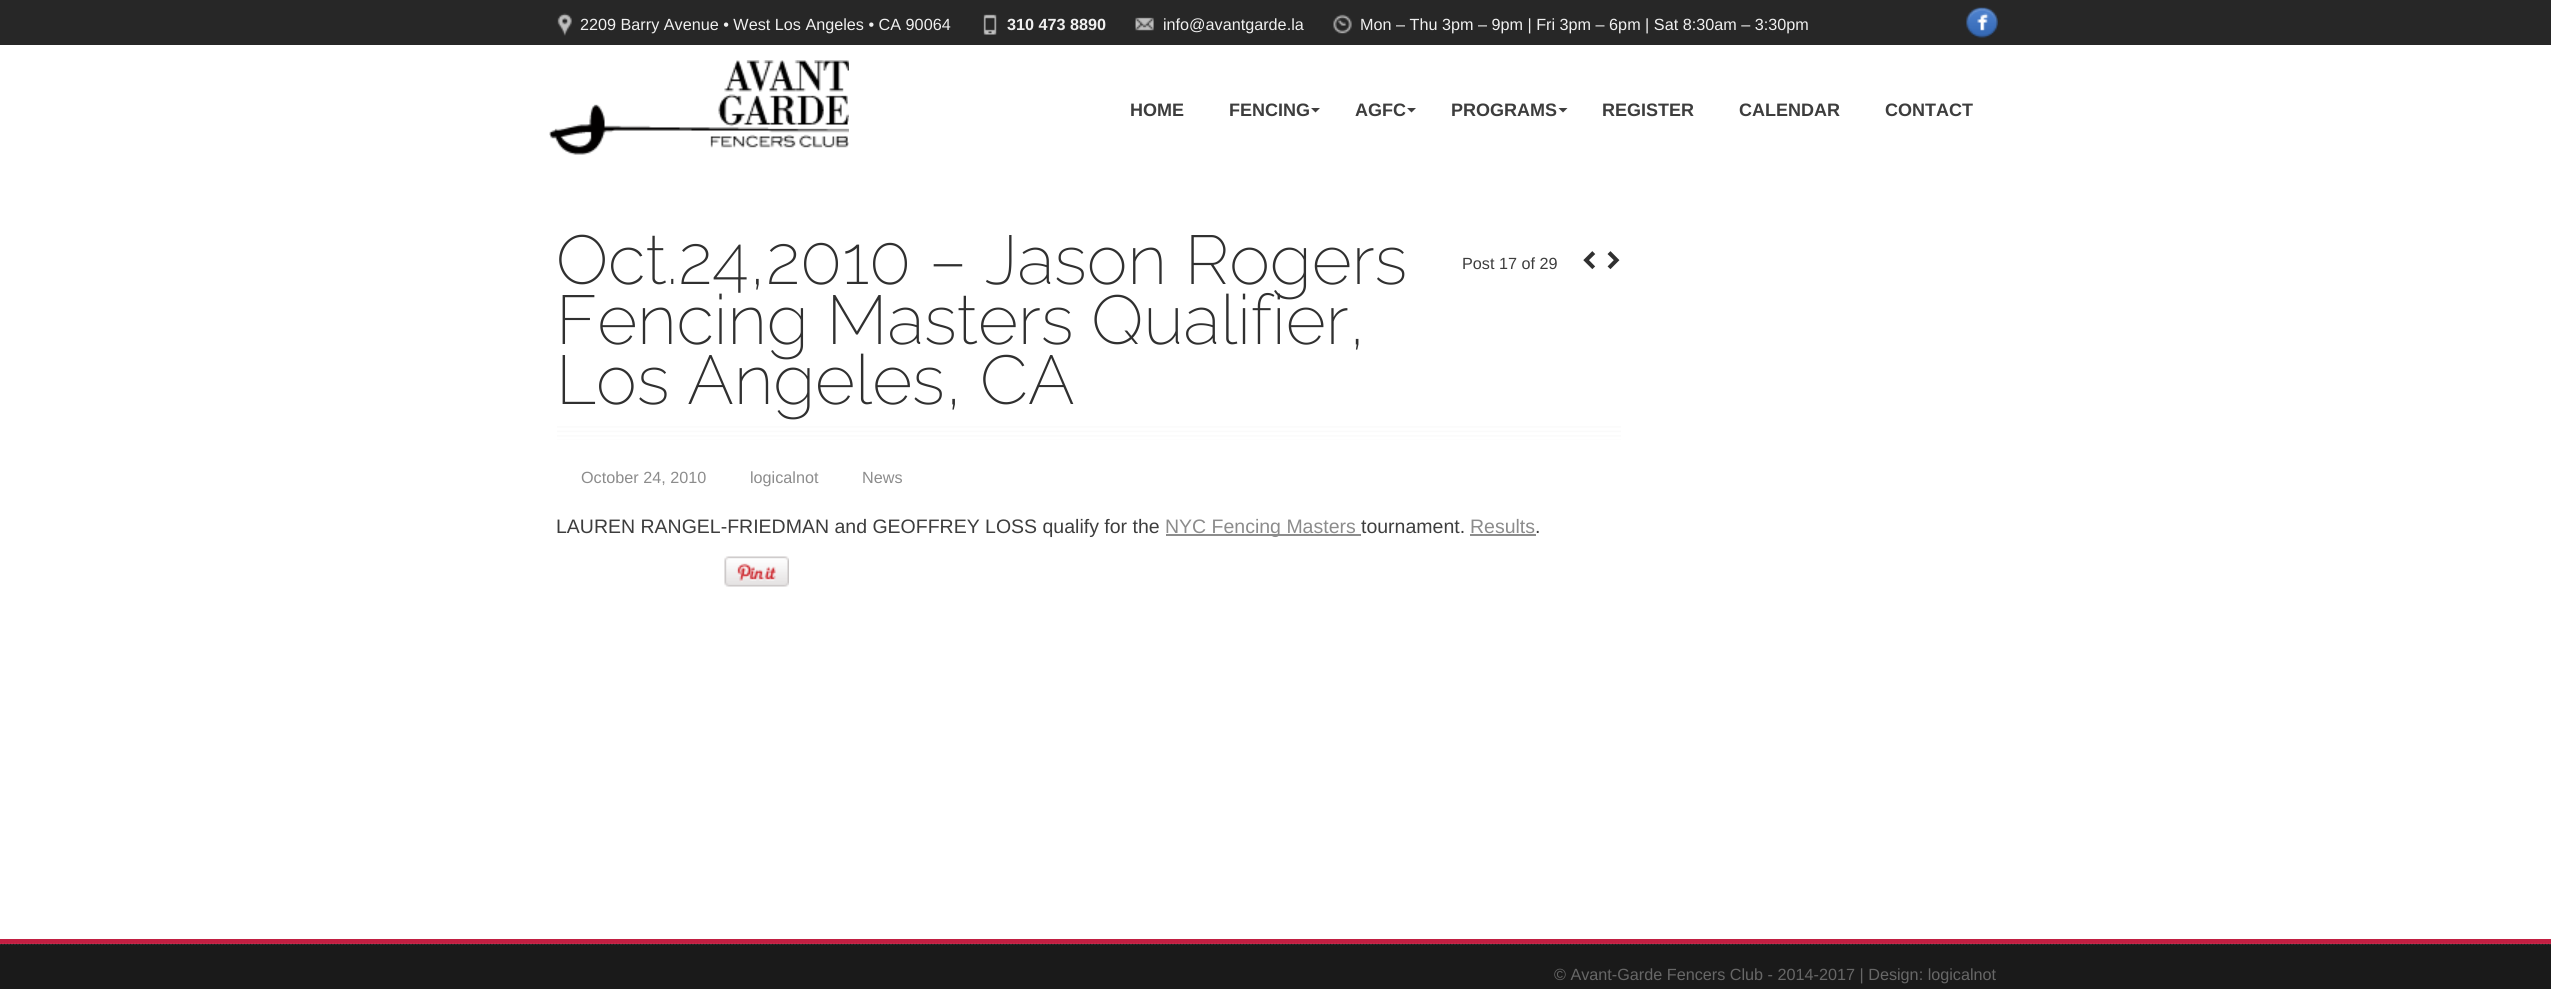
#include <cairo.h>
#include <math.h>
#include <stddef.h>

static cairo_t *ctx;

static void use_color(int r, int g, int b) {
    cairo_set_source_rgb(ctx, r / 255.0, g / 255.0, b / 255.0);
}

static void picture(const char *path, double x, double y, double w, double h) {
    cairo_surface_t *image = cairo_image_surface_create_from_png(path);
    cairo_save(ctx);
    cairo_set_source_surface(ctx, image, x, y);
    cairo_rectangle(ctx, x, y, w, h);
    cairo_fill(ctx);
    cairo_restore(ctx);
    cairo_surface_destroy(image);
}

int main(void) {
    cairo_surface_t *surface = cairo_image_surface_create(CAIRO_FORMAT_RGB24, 2551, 989);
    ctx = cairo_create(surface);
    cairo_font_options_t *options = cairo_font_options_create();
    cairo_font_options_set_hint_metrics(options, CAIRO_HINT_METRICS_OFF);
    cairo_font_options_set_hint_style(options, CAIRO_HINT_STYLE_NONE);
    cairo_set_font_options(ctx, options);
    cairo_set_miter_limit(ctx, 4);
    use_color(255, 255, 255);
    cairo_paint(ctx);
    use_color(39, 39, 39);
    cairo_rectangle(ctx, 0, 0, 2551, 45);
    cairo_fill(ctx);
    picture("img1.png", 557, 13, 15, 23);
    cairo_select_font_face(ctx, "Liberation Sans", CAIRO_FONT_SLANT_NORMAL, CAIRO_FONT_WEIGHT_NORMAL);
    cairo_set_font_size(ctx, 16.2);
    use_color(240, 240, 240);
    cairo_move_to(ctx, 580, 30);
    cairo_show_text(ctx, "2209 Barry Avenue • West Los Angeles • CA 90064");
    picture("img2.png", 983, 14, 14, 21);
    cairo_select_font_face(ctx, "Liberation Sans", CAIRO_FONT_SLANT_NORMAL, CAIRO_FONT_WEIGHT_BOLD);
    cairo_move_to(ctx, 1007, 30);
    cairo_show_text(ctx, "310 473 8890");
    picture("img3.png", 1135, 17, 19, 14);
    cairo_select_font_face(ctx, "Liberation Sans", CAIRO_FONT_SLANT_NORMAL, CAIRO_FONT_WEIGHT_NORMAL);
    cairo_move_to(ctx, 1163, 30);
    cairo_show_text(ctx, "info@avantgarde.la");
    picture("img4.png", 1333, 14, 19, 20);
    cairo_move_to(ctx, 1360, 30);
    cairo_show_text(ctx, "Mon – Thu 3pm – 9pm | Fri 3pm – 6pm | Sat 8:30am – 3:30pm");
    picture("img5.png", 1966, 7, 32, 31);
    picture("img6.png", 549, 60, 300, 95);
    cairo_select_font_face(ctx, "Liberation Sans", CAIRO_FONT_SLANT_NORMAL, CAIRO_FONT_WEIGHT_BOLD);
    cairo_set_font_size(ctx, 18);
    use_color(61, 61, 61);
    cairo_move_to(ctx, 1130, 116);
    cairo_show_text(ctx, "HOME");
    cairo_move_to(ctx, 1229, 116);
    cairo_show_text(ctx, "FENCING");
    use_color(63, 62, 62);
    cairo_new_path(ctx);
    cairo_move_to(ctx, 1311, 108);
    cairo_line_to(ctx, 1320, 108);
    cairo_line_to(ctx, 1315.5, 112.5);
    cairo_close_path(ctx);
    cairo_fill(ctx);
    use_color(61, 61, 61);
    cairo_move_to(ctx, 1355, 116);
    cairo_show_text(ctx, "AGFC");
    use_color(63, 62, 62);
    cairo_new_path(ctx);
    cairo_move_to(ctx, 1407, 108);
    cairo_line_to(ctx, 1416, 108);
    cairo_line_to(ctx, 1411.5, 112.5);
    cairo_close_path(ctx);
    cairo_fill(ctx);
    use_color(61, 61, 61);
    cairo_move_to(ctx, 1451, 116);
    cairo_show_text(ctx, "PROGRAMS");
    use_color(63, 62, 62);
    cairo_new_path(ctx);
    cairo_move_to(ctx, 1558.5, 108);
    cairo_line_to(ctx, 1567.5, 108);
    cairo_line_to(ctx, 1563, 112.5);
    cairo_close_path(ctx);
    cairo_fill(ctx);
    use_color(61, 61, 61);
    cairo_move_to(ctx, 1602, 116);
    cairo_show_text(ctx, "REGISTER");
    cairo_move_to(ctx, 1739, 116);
    cairo_show_text(ctx, "CALENDAR");
    cairo_move_to(ctx, 1885, 116);
    cairo_show_text(ctx, "CONTACT");
    cairo_select_font_face(ctx, "Raleway Thin", CAIRO_FONT_SLANT_NORMAL, CAIRO_FONT_WEIGHT_NORMAL);
    cairo_set_font_size(ctx, 69);
    use_color(48, 48, 48);
    cairo_move_to(ctx, 556, 284);
    cairo_show_text(ctx, "Oct.24,2010 – Jason Rogers");
    cairo_move_to(ctx, 556, 344);
    cairo_show_text(ctx, "Fencing Masters Qualifier,");
    cairo_move_to(ctx, 556, 404);
    cairo_show_text(ctx, "Los Angeles, CA");
    cairo_select_font_face(ctx, "Liberation Sans", CAIRO_FONT_SLANT_NORMAL, CAIRO_FONT_WEIGHT_NORMAL);
    cairo_set_font_size(ctx, 16.2);
    use_color(61, 61, 61);
    cairo_move_to(ctx, 1462, 269);
    cairo_show_text(ctx, "Post 17 of 29");
    cairo_select_font_face(ctx, "Advent Pro SemiBold", CAIRO_FONT_SLANT_NORMAL, CAIRO_FONT_WEIGHT_NORMAL);
    cairo_set_font_size(ctx, 48);
    use_color(48, 48, 48);
    cairo_move_to(ctx, 1582, 273);
    cairo_show_text(ctx, "‹");
    cairo_move_to(ctx, 1606, 273);
    cairo_show_text(ctx, "›");
    picture("img7.png", 557, 426, 1064, 14);
    cairo_select_font_face(ctx, "Liberation Sans", CAIRO_FONT_SLANT_NORMAL, CAIRO_FONT_WEIGHT_NORMAL);
    cairo_set_font_size(ctx, 16.2);
    use_color(140, 140, 140);
    cairo_move_to(ctx, 581, 483);
    cairo_show_text(ctx, "October 24, 2010");
    cairo_move_to(ctx, 750, 483);
    cairo_show_text(ctx, "logicalnot");
    cairo_move_to(ctx, 862, 483);
    cairo_show_text(ctx, "News");
    cairo_set_font_size(ctx, 19.5);
    use_color(61, 61, 61);
    cairo_move_to(ctx, 556, 533);
    cairo_show_text(ctx, "LAUREN RANGEL-FRIEDMAN and GEOFFREY LOSS qualify for the");
    use_color(140, 140, 140);
    cairo_rectangle(ctx, 1166, 534, 195, 2);
    cairo_fill(ctx);
    cairo_move_to(ctx, 1165, 533);
    cairo_show_text(ctx, "NYC Fencing Masters");
    use_color(61, 61, 61);
    cairo_move_to(ctx, 1361, 533);
    cairo_show_text(ctx, "tournament.");
    use_color(140, 140, 140);
    cairo_move_to(ctx, 1470, 533);
    cairo_show_text(ctx, "Results");
    cairo_rectangle(ctx, 1470, 534, 66, 2);
    cairo_fill(ctx);
    use_color(61, 61, 61);
    cairo_move_to(ctx, 1535, 533);
    cairo_show_text(ctx, ".");
    picture("img8.png", 724, 556, 65, 31);
    use_color(194, 31, 66);
    cairo_rectangle(ctx, 0, 939, 2551, 5);
    cairo_fill(ctx);
    use_color(26, 26, 26);
    cairo_rectangle(ctx, 0, 944, 2551, 45);
    cairo_fill(ctx);
    picture("img9.png", 0, 943, 2551, 2);
    cairo_set_font_size(ctx, 16.2);
    use_color(103, 103, 103);
    cairo_move_to(ctx, 1554, 980);
    cairo_show_text(ctx, "© Avant-Garde Fencers Club - 2014-2017 | Design: logicalnot");
    cairo_surface_write_to_png(surface, "result.png");
    cairo_font_options_destroy(options);
    cairo_destroy(ctx);
    cairo_surface_destroy(surface);
    return 0;
}
